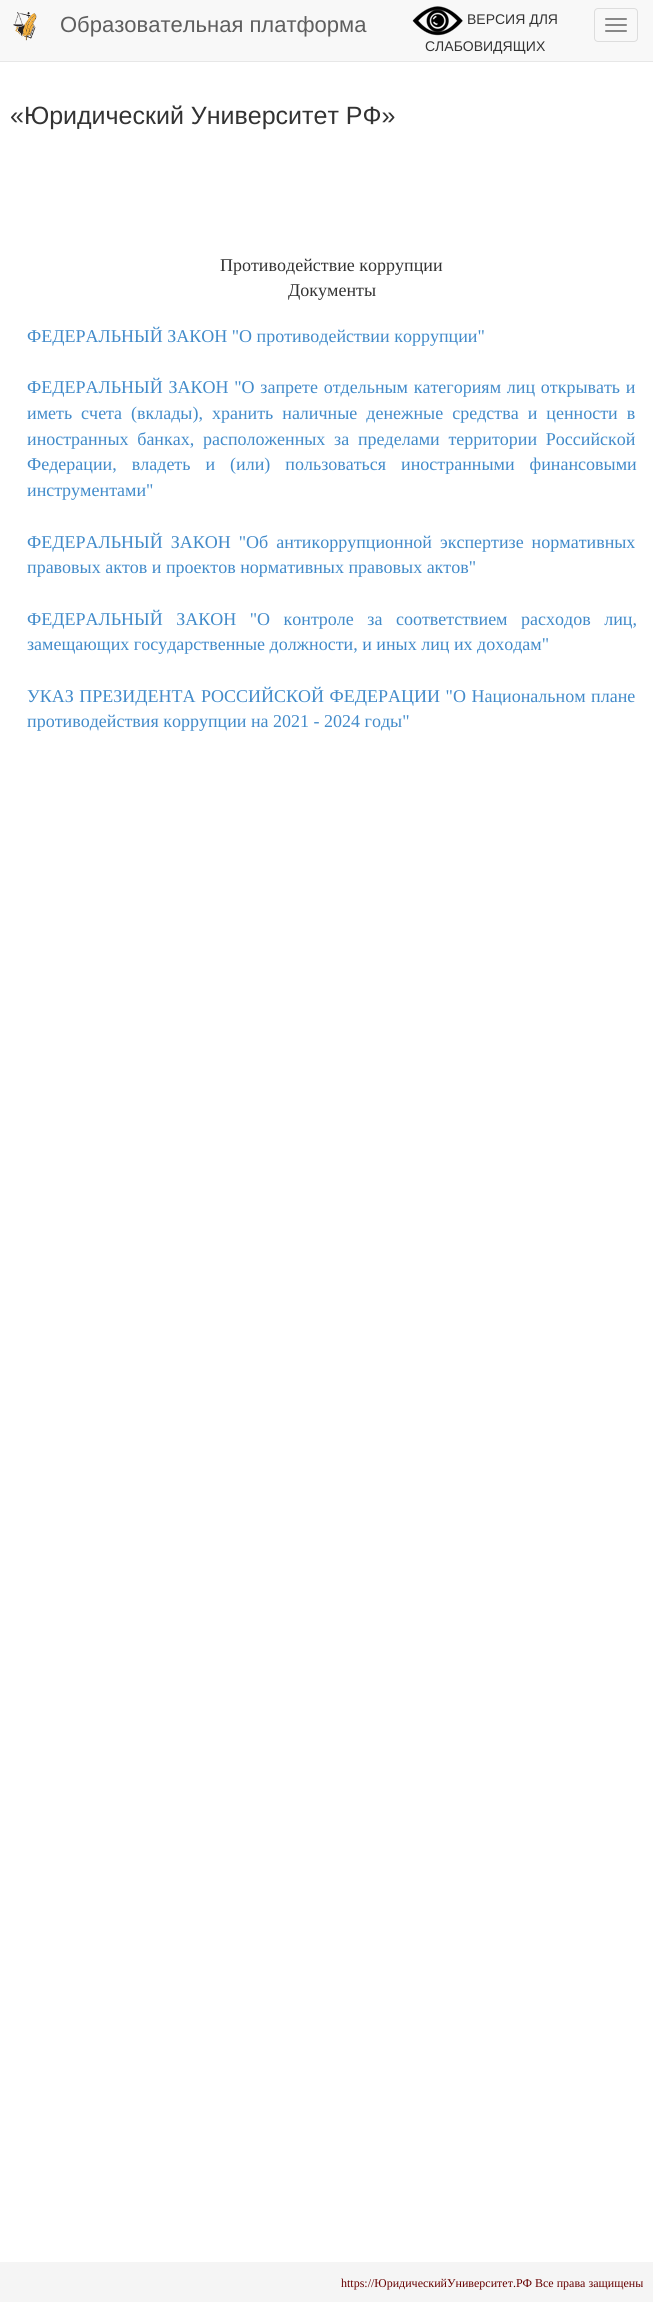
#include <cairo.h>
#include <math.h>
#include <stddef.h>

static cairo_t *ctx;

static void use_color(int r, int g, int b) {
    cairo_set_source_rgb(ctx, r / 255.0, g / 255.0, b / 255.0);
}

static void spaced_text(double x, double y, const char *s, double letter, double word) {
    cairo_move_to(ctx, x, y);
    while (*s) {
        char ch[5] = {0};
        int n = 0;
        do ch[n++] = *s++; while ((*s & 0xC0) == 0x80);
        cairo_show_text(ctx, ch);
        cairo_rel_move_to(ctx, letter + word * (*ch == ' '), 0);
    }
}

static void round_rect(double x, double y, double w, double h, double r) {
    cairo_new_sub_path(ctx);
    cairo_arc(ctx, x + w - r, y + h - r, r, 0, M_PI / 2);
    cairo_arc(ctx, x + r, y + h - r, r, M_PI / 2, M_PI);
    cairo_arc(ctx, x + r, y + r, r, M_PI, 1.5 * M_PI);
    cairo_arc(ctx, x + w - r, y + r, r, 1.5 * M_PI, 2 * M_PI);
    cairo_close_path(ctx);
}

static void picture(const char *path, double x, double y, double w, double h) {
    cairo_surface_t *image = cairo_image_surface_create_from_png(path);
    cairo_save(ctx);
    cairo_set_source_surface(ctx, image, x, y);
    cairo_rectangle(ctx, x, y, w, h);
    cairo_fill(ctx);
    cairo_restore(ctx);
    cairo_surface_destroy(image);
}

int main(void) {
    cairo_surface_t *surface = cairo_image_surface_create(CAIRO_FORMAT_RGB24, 653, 2302);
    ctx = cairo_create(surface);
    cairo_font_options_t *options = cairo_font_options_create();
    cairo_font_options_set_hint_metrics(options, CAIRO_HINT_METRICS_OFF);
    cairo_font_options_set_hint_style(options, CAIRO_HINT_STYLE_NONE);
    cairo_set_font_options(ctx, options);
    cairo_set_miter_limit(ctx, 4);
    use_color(255, 255, 255);
    cairo_paint(ctx);
    use_color(248, 248, 248);
    cairo_rectangle(ctx, 0, 0, 653, 61);
    cairo_fill(ctx);
    use_color(231, 231, 231);
    cairo_rectangle(ctx, 0, 61, 653, 1);
    cairo_fill(ctx);
    picture("img1.png", 13, 12, 24, 29);
    cairo_select_font_face(ctx, "Liberation Sans", CAIRO_FONT_SLANT_NORMAL, CAIRO_FONT_WEIGHT_NORMAL);
    cairo_set_font_size(ctx, 22);
    use_color(94, 94, 94);
    cairo_move_to(ctx, 60, 32);
    cairo_show_text(ctx, "Образовательная платформа");
    picture("img2.png", 412, 6, 51, 30);
    cairo_set_font_size(ctx, 14);
    use_color(51, 51, 51);
    cairo_move_to(ctx, 467, 24);
    cairo_show_text(ctx, "ВЕРСИЯ ДЛЯ");
    cairo_move_to(ctx, 425, 51);
    cairo_show_text(ctx, "СЛАБОВИДЯЩИХ");
    round_rect(594.5, 8.5, 43, 33, 3.5);
    use_color(221, 221, 221);
    cairo_set_line_width(ctx, 1);
    cairo_stroke(ctx);
    use_color(136, 136, 136);
    round_rect(605, 18, 22, 2, 1);
    cairo_fill(ctx);
    round_rect(605, 24, 22, 2, 1);
    cairo_fill(ctx);
    round_rect(605, 30, 22, 2, 1);
    cairo_fill(ctx);
    cairo_set_font_size(ctx, 25);
    use_color(51, 51, 51);
    cairo_move_to(ctx, 10, 124);
    cairo_show_text(ctx, "«Юридический Университет РФ»");
    cairo_select_font_face(ctx, "Liberation Serif", CAIRO_FONT_SLANT_NORMAL, CAIRO_FONT_WEIGHT_NORMAL);
    cairo_set_font_size(ctx, 18);
    cairo_move_to(ctx, 220, 271);
    cairo_show_text(ctx, "Противодействие коррупции");
    cairo_move_to(ctx, 288, 296);
    cairo_show_text(ctx, "Документы");
    use_color(66, 139, 202);
    cairo_move_to(ctx, 27, 342);
    cairo_show_text(ctx, "ФЕДЕРАЛЬНЫЙ ЗАКОН \"О противодействии коррупции\"");
    spaced_text(27, 393, "ФЕДЕРАЛЬНЫЙ ЗАКОН \"О запрете отдельным категориям лиц открывать и", 0, 1.25);
    spaced_text(27, 419, "иметь счета (вклады), хранить наличные денежные средства и ценности в", 0, 4.5);
    spaced_text(27, 445, "иностранных банках, расположенных за пределами территории Российской", 0, 4.25);
    spaced_text(27, 470, "Федерации, владеть и (или) пользоваться иностранными финансовыми", 0, 10.5);
    cairo_move_to(ctx, 27, 496);
    cairo_show_text(ctx, "инструментами\"");
    spaced_text(27, 548, "ФЕДЕРАЛЬНЫЙ ЗАКОН \"Об антикоррупционной экспертизе нормативных", 0, 3.5);
    cairo_move_to(ctx, 27, 573);
    cairo_show_text(ctx, "правовых актов и проектов нормативных правовых актов\"");
    spaced_text(27, 625, "ФЕДЕРАЛЬНЫЙ ЗАКОН \"О контроле за соответствием расходов лиц,", 0, 9);
    cairo_move_to(ctx, 27, 650);
    cairo_show_text(ctx, "замещающих государственные должности, и иных лиц их доходам\"");
    spaced_text(27, 702, "УКАЗ ПРЕЗИДЕНТА РОССИЙСКОЙ ФЕДЕРАЦИИ \"О Национальном плане", 0, 1);
    cairo_move_to(ctx, 27, 727);
    cairo_show_text(ctx, "противодействия коррупции на 2021 - 2024 годы\"");
    use_color(245, 245, 245);
    cairo_rectangle(ctx, 0, 2262, 653, 40);
    cairo_fill(ctx);
    cairo_set_font_size(ctx, 12);
    use_color(102, 0, 0);
    cairo_move_to(ctx, 341, 2287);
    cairo_show_text(ctx, "https://ЮридическийУниверситет.РФ Все права защищены");
    cairo_surface_write_to_png(surface, "result.png");
    cairo_font_options_destroy(options);
    cairo_destroy(ctx);
    cairo_surface_destroy(surface);
    return 0;
}
